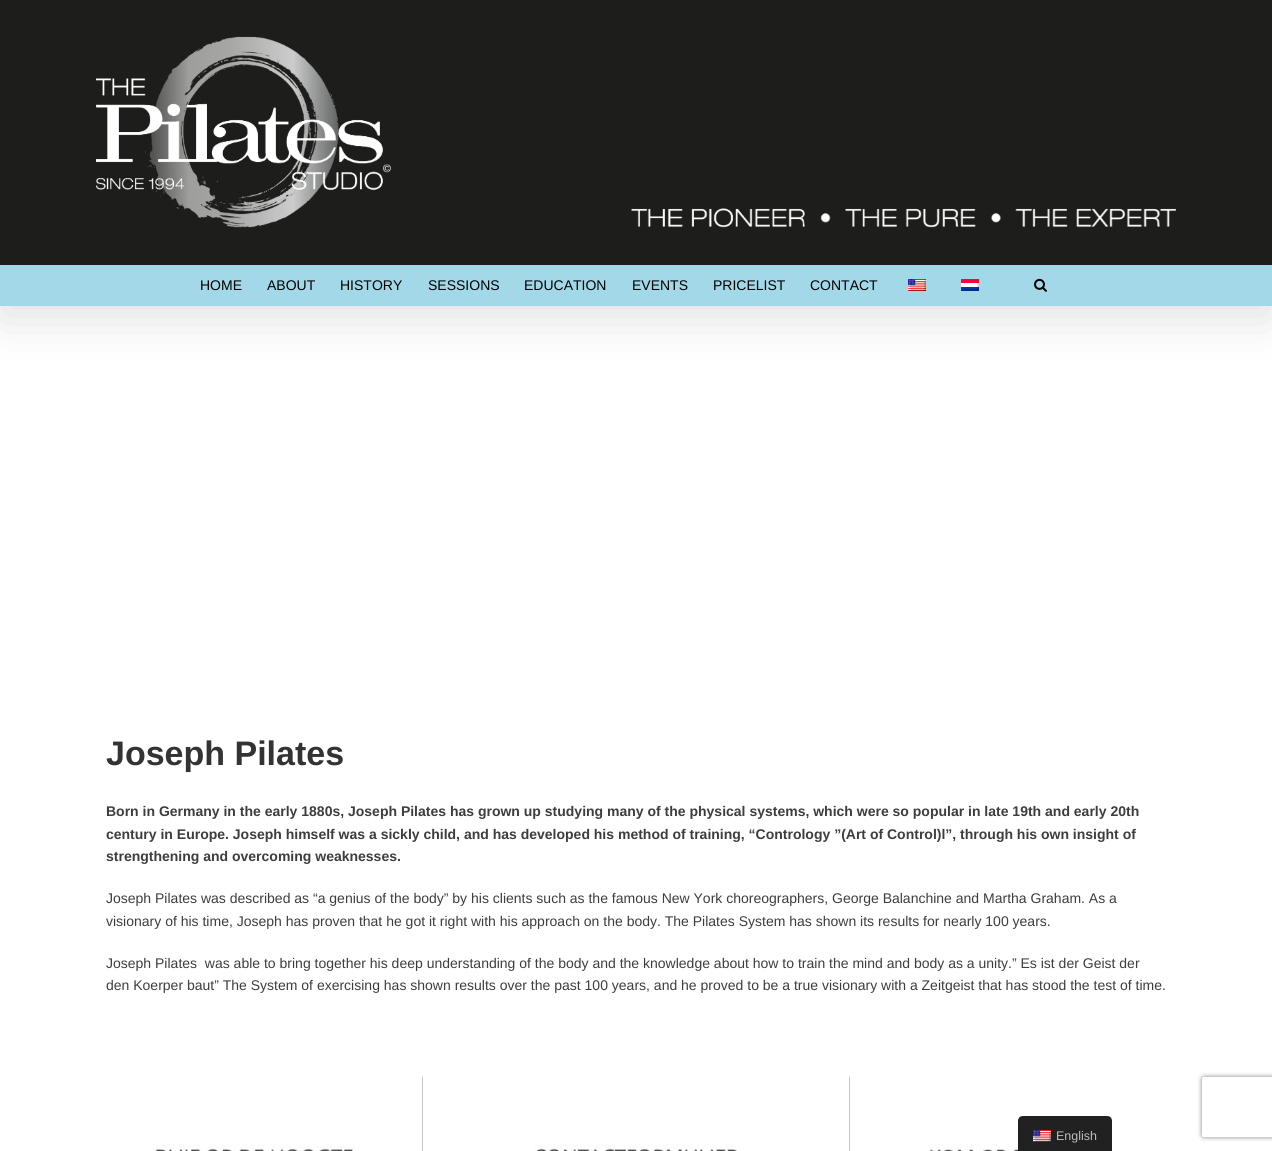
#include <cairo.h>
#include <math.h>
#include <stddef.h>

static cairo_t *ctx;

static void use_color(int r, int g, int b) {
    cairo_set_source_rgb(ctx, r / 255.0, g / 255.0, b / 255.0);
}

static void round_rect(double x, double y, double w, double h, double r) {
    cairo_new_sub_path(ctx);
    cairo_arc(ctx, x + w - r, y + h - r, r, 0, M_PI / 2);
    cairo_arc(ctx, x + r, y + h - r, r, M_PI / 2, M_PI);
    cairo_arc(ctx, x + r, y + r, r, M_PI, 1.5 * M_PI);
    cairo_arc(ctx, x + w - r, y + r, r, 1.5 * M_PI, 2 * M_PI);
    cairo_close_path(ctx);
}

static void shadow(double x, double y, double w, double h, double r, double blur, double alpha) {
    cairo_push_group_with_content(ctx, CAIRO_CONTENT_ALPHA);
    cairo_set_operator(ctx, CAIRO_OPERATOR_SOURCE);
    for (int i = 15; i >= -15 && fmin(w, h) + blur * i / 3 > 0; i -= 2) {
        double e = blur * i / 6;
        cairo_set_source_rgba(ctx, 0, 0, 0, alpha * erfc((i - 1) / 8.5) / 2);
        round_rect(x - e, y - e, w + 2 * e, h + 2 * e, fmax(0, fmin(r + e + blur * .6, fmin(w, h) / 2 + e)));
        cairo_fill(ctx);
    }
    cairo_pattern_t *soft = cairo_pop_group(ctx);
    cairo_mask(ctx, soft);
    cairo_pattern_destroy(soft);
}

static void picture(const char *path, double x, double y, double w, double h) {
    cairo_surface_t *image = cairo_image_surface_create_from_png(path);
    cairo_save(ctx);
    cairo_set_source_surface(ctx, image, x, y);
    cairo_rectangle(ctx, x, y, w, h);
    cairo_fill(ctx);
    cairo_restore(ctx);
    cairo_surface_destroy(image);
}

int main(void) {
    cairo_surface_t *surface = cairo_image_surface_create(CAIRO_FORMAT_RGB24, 1272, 1151);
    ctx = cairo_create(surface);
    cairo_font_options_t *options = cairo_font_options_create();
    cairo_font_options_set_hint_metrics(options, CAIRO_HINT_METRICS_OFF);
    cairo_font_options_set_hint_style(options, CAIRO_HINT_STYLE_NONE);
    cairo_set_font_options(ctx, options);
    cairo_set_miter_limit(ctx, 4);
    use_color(255, 255, 255);
    cairo_paint(ctx);
    use_color(0, 0, 0);
    shadow(2, 12, 1268, 302, 0, 25, 0.14);
    use_color(29, 29, 27);
    cairo_rectangle(ctx, 0, 0, 1272, 265);
    cairo_fill(ctx);
    picture("img1.png", 96, 36, 1080, 192);
    use_color(162, 216, 232);
    cairo_rectangle(ctx, 0, 265, 1272, 41);
    cairo_fill(ctx);
    cairo_select_font_face(ctx, "Liberation Sans", CAIRO_FONT_SLANT_NORMAL, CAIRO_FONT_WEIGHT_NORMAL);
    cairo_set_font_size(ctx, 14);
    use_color(2, 2, 2);
    cairo_move_to(ctx, 200, 290);
    cairo_show_text(ctx, "HOME");
    cairo_move_to(ctx, 267, 290);
    cairo_show_text(ctx, "ABOUT");
    cairo_move_to(ctx, 340, 290);
    cairo_show_text(ctx, "HISTORY");
    cairo_move_to(ctx, 428, 290);
    cairo_show_text(ctx, "SESSIONS");
    cairo_move_to(ctx, 524, 290);
    cairo_show_text(ctx, "EDUCATION");
    cairo_move_to(ctx, 632, 290);
    cairo_show_text(ctx, "EVENTS");
    cairo_move_to(ctx, 713, 290);
    cairo_show_text(ctx, "PRICELIST");
    cairo_move_to(ctx, 810, 290);
    cairo_show_text(ctx, "CONTACT");
    picture("img2.png", 908, 279, 18, 12);
    picture("img3.png", 961, 279, 18, 12);
    picture("img4.png", 1034, 278, 13, 14);
    cairo_select_font_face(ctx, "Liberation Sans", CAIRO_FONT_SLANT_NORMAL, CAIRO_FONT_WEIGHT_BOLD);
    cairo_set_font_size(ctx, 34);
    use_color(51, 51, 51);
    cairo_move_to(ctx, 106, 765);
    cairo_show_text(ctx, "Joseph Pilates");
    cairo_set_font_size(ctx, 14);
    use_color(61, 61, 61);
    cairo_move_to(ctx, 106, 816);
    cairo_show_text(ctx, "Born in Germany in the early 1880s, Joseph Pilates has grown up studying many of the physical systems, which were so popular in late 19th and early 20th");
    cairo_move_to(ctx, 106, 839);
    cairo_show_text(ctx, "century in Europe. Joseph himself was a sickly child, and has developed his method of training, “Contrology ”(Art of Control)l”, through his own insight of");
    cairo_move_to(ctx, 106, 861);
    cairo_show_text(ctx, "strengthening and overcoming weaknesses.");
    cairo_select_font_face(ctx, "Liberation Sans", CAIRO_FONT_SLANT_NORMAL, CAIRO_FONT_WEIGHT_NORMAL);
    cairo_move_to(ctx, 106, 903);
    cairo_show_text(ctx, "Joseph Pilates was described as “a genius of the body” by his clients such as the famous New York choreographers, George Balanchine and Martha Graham. As a");
    cairo_move_to(ctx, 106, 926);
    cairo_show_text(ctx, "visionary of his time, Joseph has proven that he got it right with his approach on the body. The Pilates System has shown its results for nearly 100 years.");
    cairo_move_to(ctx, 106, 968);
    cairo_show_text(ctx, "Joseph Pilates  was able to bring together his deep understanding of the body and the knowledge about how to train the mind and body as a unity.” Es ist der Geist der");
    cairo_move_to(ctx, 106, 990);
    cairo_show_text(ctx, "den Koerper baut” The System of exercising has shown results over the past 100 years, and he proved to be a true visionary with a Zeitgeist that has stood the test of time.");
    use_color(196, 196, 196);
    cairo_rectangle(ctx, 422, 1077, 1, 74);
    cairo_fill(ctx);
    picture("img5.png", 153, 1144, 202, 7);
    picture("img6.png", 535, 1144, 202, 7);
    cairo_rectangle(ctx, 849, 1077, 1, 74);
    cairo_fill(ctx);
    picture("img7.png", 929, 1144, 89, 7);
    use_color(33, 33, 33);
    cairo_new_path(ctx);
    cairo_move_to(ctx, 1023, 1116);
    cairo_line_to(ctx, 1107, 1116);
    cairo_curve_to(ctx, 1110, 1116, 1112, 1118, 1112, 1121);
    cairo_line_to(ctx, 1112, 1151);
    cairo_line_to(ctx, 1018, 1151);
    cairo_line_to(ctx, 1018, 1121);
    cairo_curve_to(ctx, 1018, 1118, 1020, 1116, 1023, 1116);
    cairo_close_path(ctx);
    cairo_fill(ctx);
    picture("img2.png", 1033, 1130, 18, 12);
    cairo_set_font_size(ctx, 12.5);
    use_color(189, 189, 189);
    cairo_move_to(ctx, 1056, 1140);
    cairo_show_text(ctx, "English");
    cairo_save(ctx);
    cairo_set_fill_rule(ctx, CAIRO_FILL_RULE_EVEN_ODD);
    cairo_new_path(ctx);
    cairo_move_to(ctx, 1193, 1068);
    cairo_line_to(ctx, 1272, 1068);
    cairo_line_to(ctx, 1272, 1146);
    cairo_line_to(ctx, 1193, 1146);
    cairo_close_path(ctx);
    cairo_move_to(ctx, 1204, 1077);
    cairo_line_to(ctx, 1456, 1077);
    cairo_curve_to(ctx, 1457, 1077, 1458, 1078, 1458, 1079);
    cairo_line_to(ctx, 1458, 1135);
    cairo_curve_to(ctx, 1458, 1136, 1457, 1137, 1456, 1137);
    cairo_line_to(ctx, 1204, 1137);
    cairo_curve_to(ctx, 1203, 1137, 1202, 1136, 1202, 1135);
    cairo_line_to(ctx, 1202, 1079);
    cairo_curve_to(ctx, 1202, 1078, 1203, 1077, 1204, 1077);
    cairo_close_path(ctx);
    cairo_clip(ctx);
    use_color(128, 128, 128);
    shadow(1202, 1077, 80, 60, 2, 2.5, 1);
    cairo_restore(ctx);
    cairo_surface_write_to_png(surface, "result.png");
    cairo_font_options_destroy(options);
    cairo_destroy(ctx);
    cairo_surface_destroy(surface);
    return 0;
}
